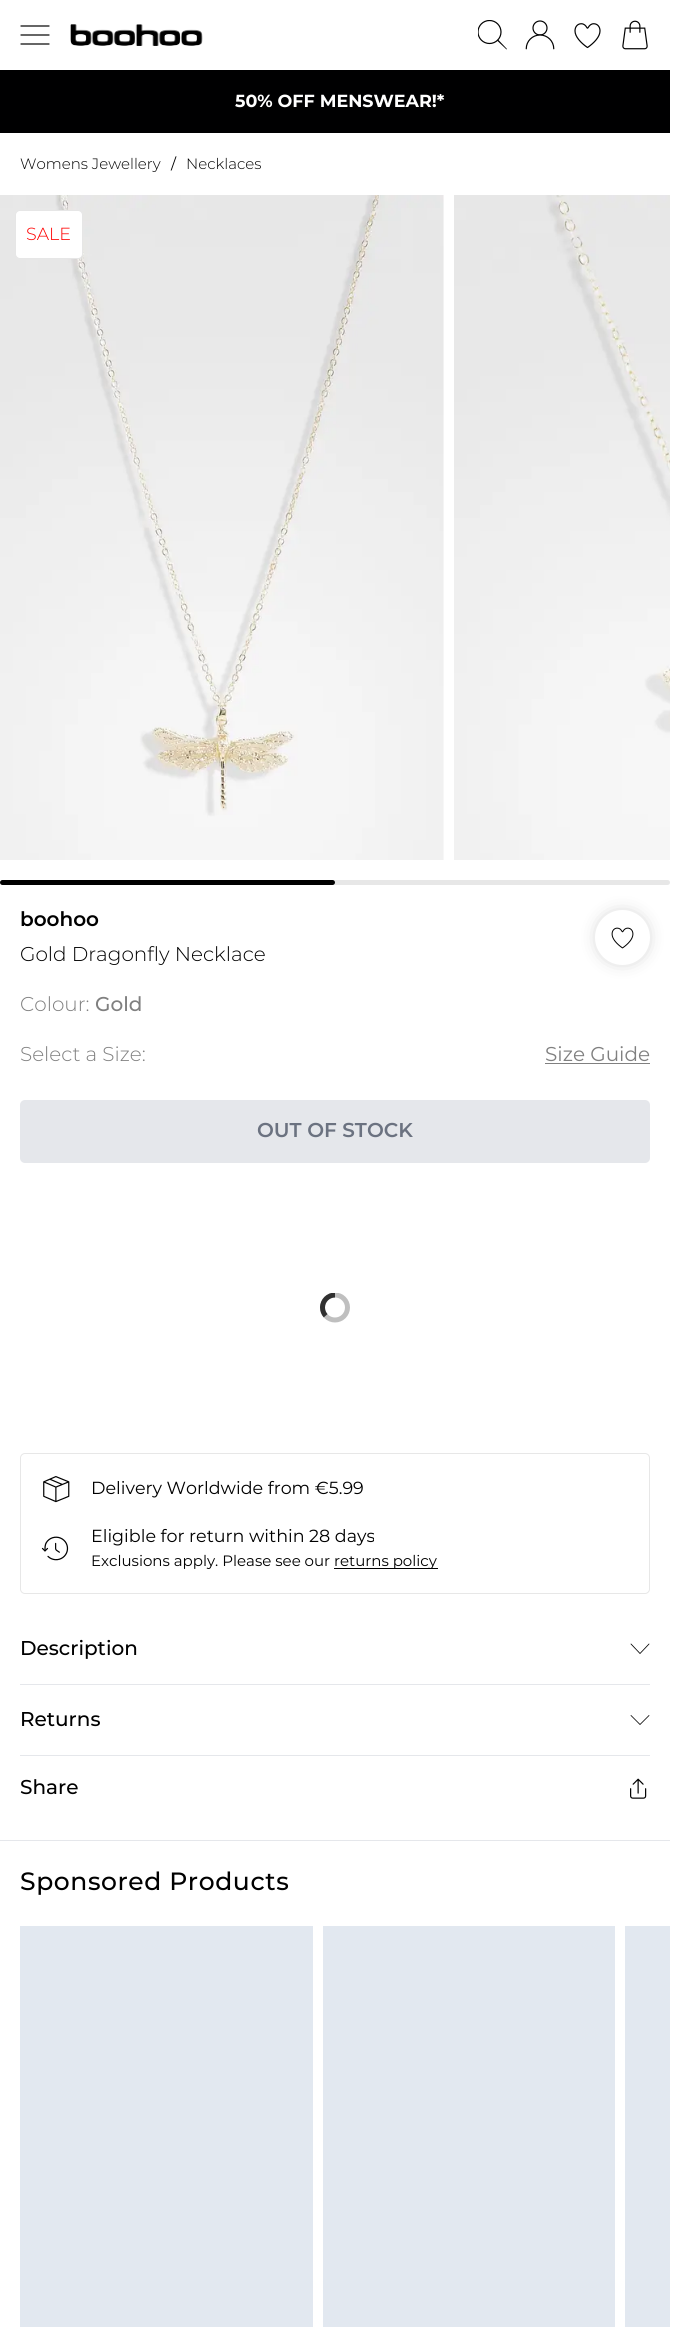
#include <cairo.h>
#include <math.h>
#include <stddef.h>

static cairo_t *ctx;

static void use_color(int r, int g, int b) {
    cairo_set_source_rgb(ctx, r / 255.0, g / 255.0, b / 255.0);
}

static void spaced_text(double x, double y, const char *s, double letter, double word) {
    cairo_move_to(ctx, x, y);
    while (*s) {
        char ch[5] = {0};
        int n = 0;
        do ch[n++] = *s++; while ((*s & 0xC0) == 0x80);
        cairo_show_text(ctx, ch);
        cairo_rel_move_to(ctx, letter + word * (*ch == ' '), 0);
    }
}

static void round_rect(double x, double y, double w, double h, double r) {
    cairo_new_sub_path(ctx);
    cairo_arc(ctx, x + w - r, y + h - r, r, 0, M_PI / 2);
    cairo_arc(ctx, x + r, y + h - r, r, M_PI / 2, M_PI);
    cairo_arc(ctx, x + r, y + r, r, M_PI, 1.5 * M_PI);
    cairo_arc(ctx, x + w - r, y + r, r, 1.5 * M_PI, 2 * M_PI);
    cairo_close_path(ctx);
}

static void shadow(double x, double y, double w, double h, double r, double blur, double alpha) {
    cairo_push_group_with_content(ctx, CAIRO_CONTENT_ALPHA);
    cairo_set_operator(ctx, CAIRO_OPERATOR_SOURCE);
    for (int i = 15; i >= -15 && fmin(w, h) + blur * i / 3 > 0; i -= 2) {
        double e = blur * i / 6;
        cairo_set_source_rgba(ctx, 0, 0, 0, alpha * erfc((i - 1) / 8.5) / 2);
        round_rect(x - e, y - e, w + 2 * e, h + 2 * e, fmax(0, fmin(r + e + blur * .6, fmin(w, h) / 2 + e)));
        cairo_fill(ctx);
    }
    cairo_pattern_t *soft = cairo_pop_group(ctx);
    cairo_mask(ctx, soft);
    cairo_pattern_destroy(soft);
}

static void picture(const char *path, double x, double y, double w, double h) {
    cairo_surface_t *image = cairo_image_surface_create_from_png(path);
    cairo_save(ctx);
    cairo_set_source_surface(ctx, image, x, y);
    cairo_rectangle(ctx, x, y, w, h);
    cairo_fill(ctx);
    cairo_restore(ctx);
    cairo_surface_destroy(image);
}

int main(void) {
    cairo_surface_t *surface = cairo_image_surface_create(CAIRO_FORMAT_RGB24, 688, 2327);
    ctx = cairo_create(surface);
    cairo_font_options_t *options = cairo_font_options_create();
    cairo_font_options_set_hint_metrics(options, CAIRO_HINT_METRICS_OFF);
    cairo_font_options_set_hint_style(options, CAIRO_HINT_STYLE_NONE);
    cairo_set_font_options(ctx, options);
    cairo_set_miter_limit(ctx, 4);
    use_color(255, 255, 255);
    cairo_paint(ctx);
    cairo_new_path(ctx);
    cairo_move_to(ctx, 49, 35);
    cairo_line_to(ctx, 21, 35);
    cairo_move_to(ctx, 49, 44);
    cairo_line_to(ctx, 21, 44);
    cairo_move_to(ctx, 49, 26);
    cairo_line_to(ctx, 21, 26);
    use_color(0, 0, 0);
    cairo_set_line_width(ctx, 1.2);
    cairo_set_line_cap(ctx, CAIRO_LINE_CAP_ROUND);
    cairo_stroke(ctx);
    picture("img1.png", 70, 24, 133, 22);
    cairo_save(ctx);
    cairo_rectangle(ctx, 478, 20, 30, 30);
    cairo_clip(ctx);
    cairo_arc(ctx, 489.5, 32, 11.5, 0, 2 * M_PI);
    cairo_set_line_cap(ctx, CAIRO_LINE_CAP_BUTT);
    cairo_stroke(ctx);
    cairo_restore(ctx);
    cairo_new_path(ctx);
    cairo_move_to(ctx, 506, 49);
    cairo_curve_to(ctx, 506.5, 50, 507.5, 49, 506.5, 48.5);
    cairo_close_path(ctx);
    cairo_move_to(ctx, 506.5, 48.5);
    cairo_line_to(ctx, 498, 39.5);
    cairo_line_to(ctx, 497, 40.5);
    cairo_line_to(ctx, 506, 49);
    cairo_close_path(ctx);
    cairo_fill(ctx);
    picture("img2.png", 525, 20, 30, 30);
    picture("img3.png", 574, 23, 27, 26);
    picture("img4.png", 622, 20, 26, 30);
    use_color(0, 0, 1);
    cairo_rectangle(ctx, 0, 70, 670, 63);
    cairo_fill(ctx);
    cairo_select_font_face(ctx, "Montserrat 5 Thin", CAIRO_FONT_SLANT_NORMAL, CAIRO_FONT_WEIGHT_NORMAL);
    cairo_set_font_size(ctx, 17.5);
    use_color(255, 255, 255);
    cairo_move_to(ctx, 235, 107);
    cairo_show_text(ctx, "50% OFF MENSWEAR!*");
    cairo_select_font_face(ctx, "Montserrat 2 Thin", CAIRO_FONT_SLANT_NORMAL, CAIRO_FONT_WEIGHT_NORMAL);
    cairo_set_font_size(ctx, 15);
    use_color(0, 0, 0);
    cairo_move_to(ctx, 20, 169);
    cairo_show_text(ctx, "Womens Jewellery");
    cairo_select_font_face(ctx, "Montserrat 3 Thin", CAIRO_FONT_SLANT_NORMAL, CAIRO_FONT_WEIGHT_NORMAL);
    cairo_move_to(ctx, 171, 169);
    cairo_show_text(ctx, "/");
    cairo_select_font_face(ctx, "Montserrat 2 Thin", CAIRO_FONT_SLANT_NORMAL, CAIRO_FONT_WEIGHT_NORMAL);
    cairo_move_to(ctx, 186, 169);
    cairo_show_text(ctx, "Necklaces");
    picture("img5.png", 0, 195, 444, 665);
    picture("img6.png", 454, 195, 216, 665);
    use_color(231, 231, 231);
    round_rect(0, 880, 670, 5, 2.5);
    cairo_fill(ctx);
    use_color(0, 0, 0);
    round_rect(0, 880, 335, 5, 2.5);
    cairo_fill(ctx);
    use_color(255, 255, 255);
    round_rect(15.5, 210.5, 67, 48, 4.5);
    cairo_fill_preserve(ctx);
    use_color(230, 230, 230);
    cairo_set_line_width(ctx, 1);
    cairo_set_line_cap(ctx, CAIRO_LINE_CAP_BUTT);
    cairo_stroke(ctx);
    cairo_set_font_size(ctx, 17.5);
    use_color(255, 0, 0);
    cairo_move_to(ctx, 26, 240);
    cairo_show_text(ctx, "SALE");
    cairo_select_font_face(ctx, "Montserrat Thin", CAIRO_FONT_SLANT_NORMAL, CAIRO_FONT_WEIGHT_NORMAL);
    cairo_set_font_size(ctx, 20);
    use_color(0, 0, 0);
    cairo_move_to(ctx, 20, 926);
    cairo_show_text(ctx, "boohoo");
    cairo_select_font_face(ctx, "Montserrat 2 Thin", CAIRO_FONT_SLANT_NORMAL, CAIRO_FONT_WEIGHT_NORMAL);
    cairo_move_to(ctx, 20, 961);
    cairo_show_text(ctx, "Gold Dragonfly Necklace");
    use_color(0, 0, 0);
    shadow(600, 915, 45, 45, 22.5, 9, 0.25);
    use_color(255, 255, 255);
    cairo_arc(ctx, 622.5, 937.5, 27.5, 0, 2 * M_PI);
    cairo_fill(ctx);
    picture("img7.png", 611, 927, 23, 22);
    use_color(128, 128, 128);
    cairo_move_to(ctx, 20, 1011);
    cairo_show_text(ctx, "Colour:");
    cairo_select_font_face(ctx, "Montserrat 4 Thin", CAIRO_FONT_SLANT_NORMAL, CAIRO_FONT_WEIGHT_NORMAL);
    cairo_move_to(ctx, 95, 1011);
    cairo_show_text(ctx, "Gold");
    cairo_select_font_face(ctx, "Montserrat 2 Thin", CAIRO_FONT_SLANT_NORMAL, CAIRO_FONT_WEIGHT_NORMAL);
    cairo_move_to(ctx, 20, 1061);
    cairo_show_text(ctx, "Select a Size:");
    cairo_select_font_face(ctx, "Montserrat 3 Thin", CAIRO_FONT_SLANT_NORMAL, CAIRO_FONT_WEIGHT_NORMAL);
    cairo_move_to(ctx, 545, 1061);
    cairo_show_text(ctx, "Size Guide");
    cairo_rectangle(ctx, 545, 1063, 105, 1);
    cairo_fill(ctx);
    use_color(229, 231, 235);
    round_rect(20, 1100, 630, 63, 5);
    cairo_fill(ctx);
    cairo_select_font_face(ctx, "Montserrat Thin", CAIRO_FONT_SLANT_NORMAL, CAIRO_FONT_WEIGHT_NORMAL);
    use_color(107, 114, 128);
    cairo_move_to(ctx, 257, 1137);
    cairo_show_text(ctx, "OUT OF STOCK");
    picture("img8.png", 320, 1293, 30, 30);
    round_rect(20.5, 1453.5, 629, 140, 4.5);
    use_color(231, 231, 231);
    cairo_stroke(ctx);
    picture("img9.png", 43, 1476, 27, 27);
    cairo_select_font_face(ctx, "Montserrat 3 Thin", CAIRO_FONT_SLANT_NORMAL, CAIRO_FONT_WEIGHT_NORMAL);
    cairo_set_font_size(ctx, 17.5);
    use_color(0, 0, 0);
    cairo_move_to(ctx, 91, 1494);
    cairo_show_text(ctx, "Delivery Worldwide from €5.99");
    picture("img10.png", 41, 1536, 28, 25);
    cairo_move_to(ctx, 91, 1542);
    cairo_show_text(ctx, "Eligible for return within 28 days");
    cairo_set_font_size(ctx, 15);
    cairo_move_to(ctx, 91, 1566);
    cairo_show_text(ctx, "Exclusions apply. Please see our");
    cairo_rectangle(ctx, 334, 1568, 104, 1);
    cairo_fill(ctx);
    cairo_move_to(ctx, 334, 1566);
    cairo_show_text(ctx, "returns policy");
    cairo_select_font_face(ctx, "Montserrat 4 Thin", CAIRO_FONT_SLANT_NORMAL, CAIRO_FONT_WEIGHT_NORMAL);
    cairo_set_font_size(ctx, 20);
    cairo_move_to(ctx, 20, 1655);
    cairo_show_text(ctx, "Description");
    cairo_new_path(ctx);
    cairo_move_to(ctx, 631, 1644);
    cairo_line_to(ctx, 640, 1653.5);
    cairo_line_to(ctx, 649, 1644);
    cairo_set_line_width(ctx, 0.8);
    cairo_set_line_cap(ctx, CAIRO_LINE_CAP_ROUND);
    cairo_stroke(ctx);
    use_color(229, 231, 235);
    cairo_rectangle(ctx, 20, 1684, 630, 1);
    cairo_fill(ctx);
    use_color(0, 0, 0);
    cairo_move_to(ctx, 20, 1726);
    cairo_show_text(ctx, "Returns");
    cairo_new_path(ctx);
    cairo_move_to(ctx, 631, 1715.5);
    cairo_line_to(ctx, 640, 1724.5);
    cairo_line_to(ctx, 649, 1715.5);
    cairo_stroke(ctx);
    use_color(229, 231, 235);
    cairo_rectangle(ctx, 20, 1755, 630, 1);
    cairo_fill(ctx);
    use_color(0, 0, 0);
    cairo_move_to(ctx, 20, 1794);
    cairo_show_text(ctx, "Share");
    picture("img11.png", 630, 1778, 17, 21);
    use_color(229, 231, 235);
    cairo_rectangle(ctx, 0, 1840, 670, 1);
    cairo_fill(ctx);
    cairo_set_font_size(ctx, 25);
    use_color(0, 0, 0);
    spaced_text(20, 1890, "Sponsored Products", 0.6, 0);
    use_color(226, 232, 240);
    cairo_rectangle(ctx, 20, 1926, 293, 401);
    cairo_fill(ctx);
    cairo_rectangle(ctx, 323, 1926, 292, 401);
    cairo_fill(ctx);
    cairo_rectangle(ctx, 625, 1926, 45, 401);
    cairo_fill(ctx);
    cairo_surface_write_to_png(surface, "result.png");
    cairo_font_options_destroy(options);
    cairo_destroy(ctx);
    cairo_surface_destroy(surface);
    return 0;
}
